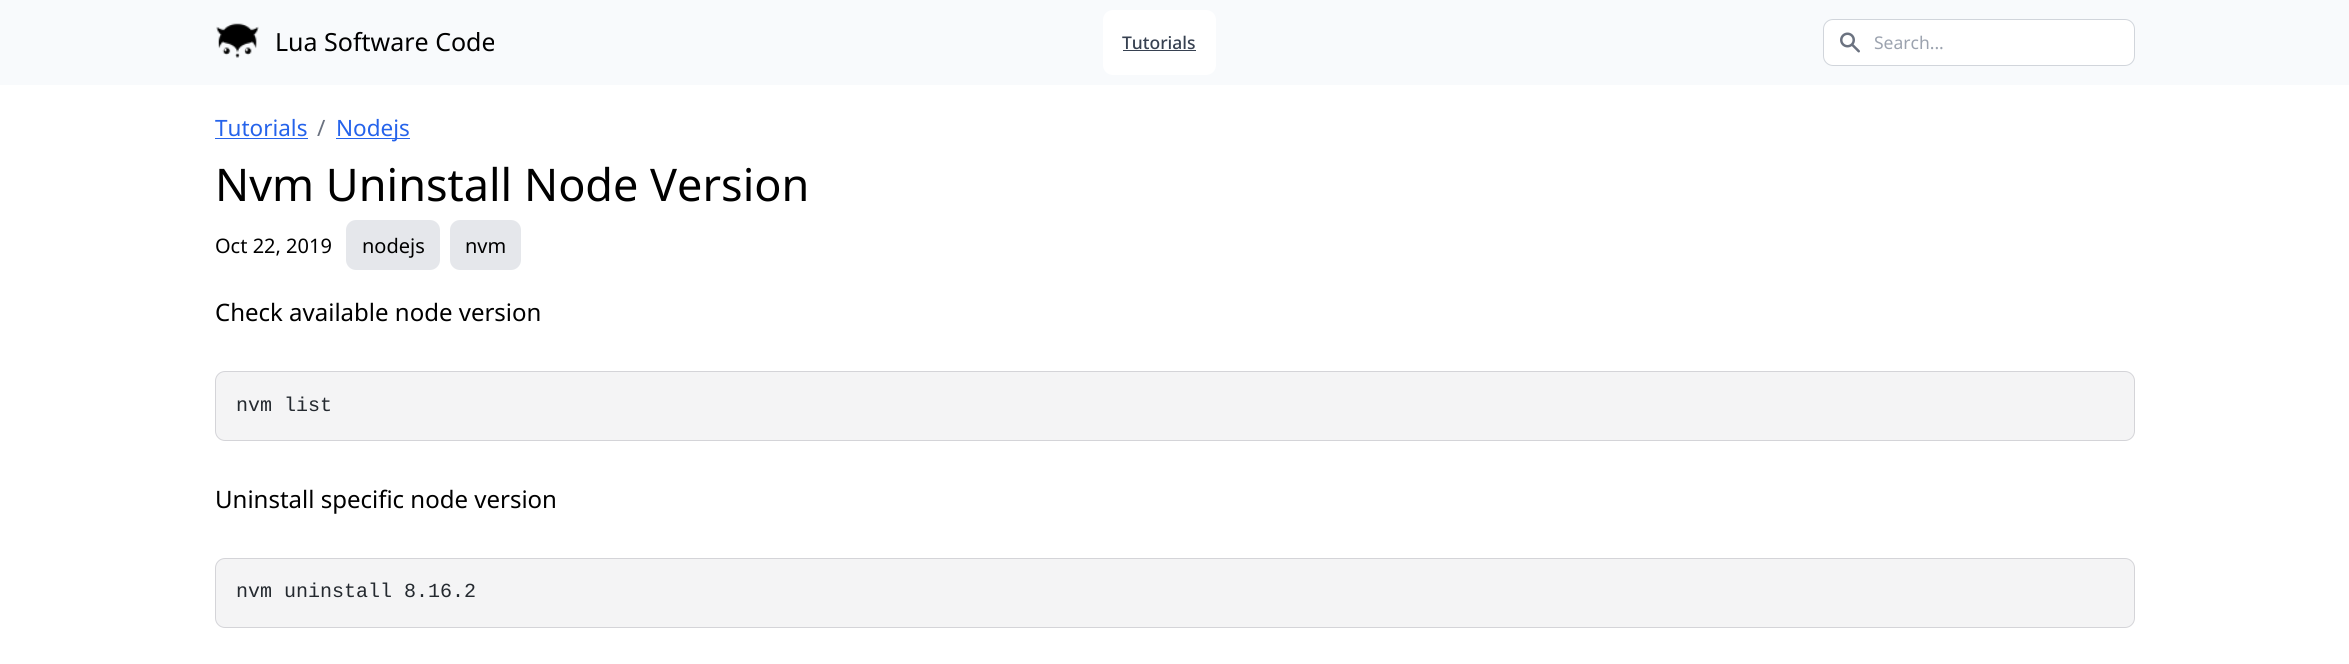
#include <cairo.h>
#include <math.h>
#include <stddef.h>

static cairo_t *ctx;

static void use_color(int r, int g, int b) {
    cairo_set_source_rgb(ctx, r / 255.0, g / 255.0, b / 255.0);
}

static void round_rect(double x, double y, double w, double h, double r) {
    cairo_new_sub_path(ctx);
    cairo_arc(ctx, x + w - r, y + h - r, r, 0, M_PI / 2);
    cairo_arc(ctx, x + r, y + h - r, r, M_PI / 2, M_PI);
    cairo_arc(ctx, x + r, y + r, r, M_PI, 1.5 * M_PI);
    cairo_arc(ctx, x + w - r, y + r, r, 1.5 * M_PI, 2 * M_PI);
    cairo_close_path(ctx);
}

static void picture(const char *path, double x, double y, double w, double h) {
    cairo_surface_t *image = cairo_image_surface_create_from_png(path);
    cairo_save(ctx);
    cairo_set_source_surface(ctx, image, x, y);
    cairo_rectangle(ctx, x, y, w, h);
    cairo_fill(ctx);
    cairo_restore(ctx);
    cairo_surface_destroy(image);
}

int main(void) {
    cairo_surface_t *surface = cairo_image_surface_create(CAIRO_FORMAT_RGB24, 2349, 664);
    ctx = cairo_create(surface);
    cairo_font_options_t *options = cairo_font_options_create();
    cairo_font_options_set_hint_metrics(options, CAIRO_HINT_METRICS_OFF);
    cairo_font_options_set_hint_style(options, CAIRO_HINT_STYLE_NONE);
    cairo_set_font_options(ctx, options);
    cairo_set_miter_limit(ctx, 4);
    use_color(255, 255, 255);
    cairo_paint(ctx);
    use_color(248, 250, 252);
    cairo_rectangle(ctx, 0, 0, 2349, 85);
    cairo_fill(ctx);
    picture("img1.png", 216, 23, 43, 35);
    cairo_select_font_face(ctx, "Noto Sans", CAIRO_FONT_SLANT_NORMAL, CAIRO_FONT_WEIGHT_NORMAL);
    cairo_set_font_size(ctx, 25);
    use_color(0, 0, 0);
    cairo_move_to(ctx, 275, 51);
    cairo_show_text(ctx, "Lua Software Code");
    use_color(255, 255, 255);
    round_rect(1103, 10, 113, 65, 10);
    cairo_fill(ctx);
    cairo_select_font_face(ctx, "Noto Sans Medium", CAIRO_FONT_SLANT_NORMAL, CAIRO_FONT_WEIGHT_NORMAL);
    cairo_set_font_size(ctx, 17.5);
    use_color(55, 65, 81);
    cairo_move_to(ctx, 1122, 49);
    cairo_show_text(ctx, "Tutorials");
    cairo_rectangle(ctx, 1123, 50, 73, 1);
    cairo_fill(ctx);
    use_color(255, 255, 255);
    round_rect(1823.5, 19.5, 311, 46, 9.5);
    cairo_fill_preserve(ctx);
    use_color(209, 213, 219);
    cairo_set_line_width(ctx, 1);
    cairo_stroke(ctx);
    picture("img2.png", 1840, 32, 20, 21);
    cairo_select_font_face(ctx, "Noto Sans", CAIRO_FONT_SLANT_NORMAL, CAIRO_FONT_WEIGHT_NORMAL);
    use_color(156, 163, 175);
    cairo_move_to(ctx, 1874, 49);
    cairo_show_text(ctx, "Search...");
    cairo_set_font_size(ctx, 22.5);
    use_color(37, 99, 235);
    cairo_move_to(ctx, 215, 136);
    cairo_show_text(ctx, "Tutorials");
    cairo_rectangle(ctx, 215, 138, 93, 1);
    cairo_fill(ctx);
    use_color(107, 114, 128);
    cairo_move_to(ctx, 317, 136);
    cairo_show_text(ctx, "/");
    use_color(37, 99, 235);
    cairo_rectangle(ctx, 336, 138, 74, 1);
    cairo_fill(ctx);
    cairo_move_to(ctx, 336, 136);
    cairo_show_text(ctx, "Nodejs");
    cairo_set_font_size(ctx, 45);
    use_color(0, 0, 0);
    cairo_move_to(ctx, 215, 201);
    cairo_show_text(ctx, "Nvm Uninstall Node Version");
    cairo_set_font_size(ctx, 20);
    cairo_move_to(ctx, 215, 253);
    cairo_show_text(ctx, "Oct 22, 2019");
    use_color(229, 231, 235);
    round_rect(346, 220, 94, 50, 10);
    cairo_fill(ctx);
    use_color(0, 0, 0);
    cairo_move_to(ctx, 362, 253);
    cairo_show_text(ctx, "nodejs");
    use_color(229, 231, 235);
    round_rect(450, 220, 71, 50, 10);
    cairo_fill(ctx);
    use_color(0, 0, 0);
    cairo_move_to(ctx, 465, 253);
    cairo_show_text(ctx, "nvm");
    cairo_set_font_size(ctx, 24);
    cairo_move_to(ctx, 215, 321);
    cairo_show_text(ctx, "Check available node version");
    use_color(244, 244, 245);
    round_rect(215.5, 371.5, 1919, 69, 9.5);
    cairo_fill_preserve(ctx);
    use_color(212, 212, 216);
    cairo_stroke(ctx);
    cairo_select_font_face(ctx, "Liberation Mono", CAIRO_FONT_SLANT_NORMAL, CAIRO_FONT_WEIGHT_NORMAL);
    cairo_set_font_size(ctx, 20);
    use_color(36, 41, 47);
    cairo_move_to(ctx, 236, 411);
    cairo_show_text(ctx, "nvm list");
    cairo_select_font_face(ctx, "Noto Sans", CAIRO_FONT_SLANT_NORMAL, CAIRO_FONT_WEIGHT_NORMAL);
    cairo_set_font_size(ctx, 24);
    use_color(0, 0, 0);
    cairo_move_to(ctx, 215, 508);
    cairo_show_text(ctx, "Uninstall specific node version");
    use_color(244, 244, 245);
    round_rect(215.5, 558.5, 1919, 69, 9.5);
    cairo_fill_preserve(ctx);
    use_color(212, 212, 216);
    cairo_stroke(ctx);
    cairo_select_font_face(ctx, "Liberation Mono", CAIRO_FONT_SLANT_NORMAL, CAIRO_FONT_WEIGHT_NORMAL);
    cairo_set_font_size(ctx, 20);
    use_color(36, 41, 47);
    cairo_move_to(ctx, 236, 597);
    cairo_show_text(ctx, "nvm uninstall 8.16.2");
    cairo_surface_write_to_png(surface, "result.png");
    cairo_font_options_destroy(options);
    cairo_destroy(ctx);
    cairo_surface_destroy(surface);
    return 0;
}
